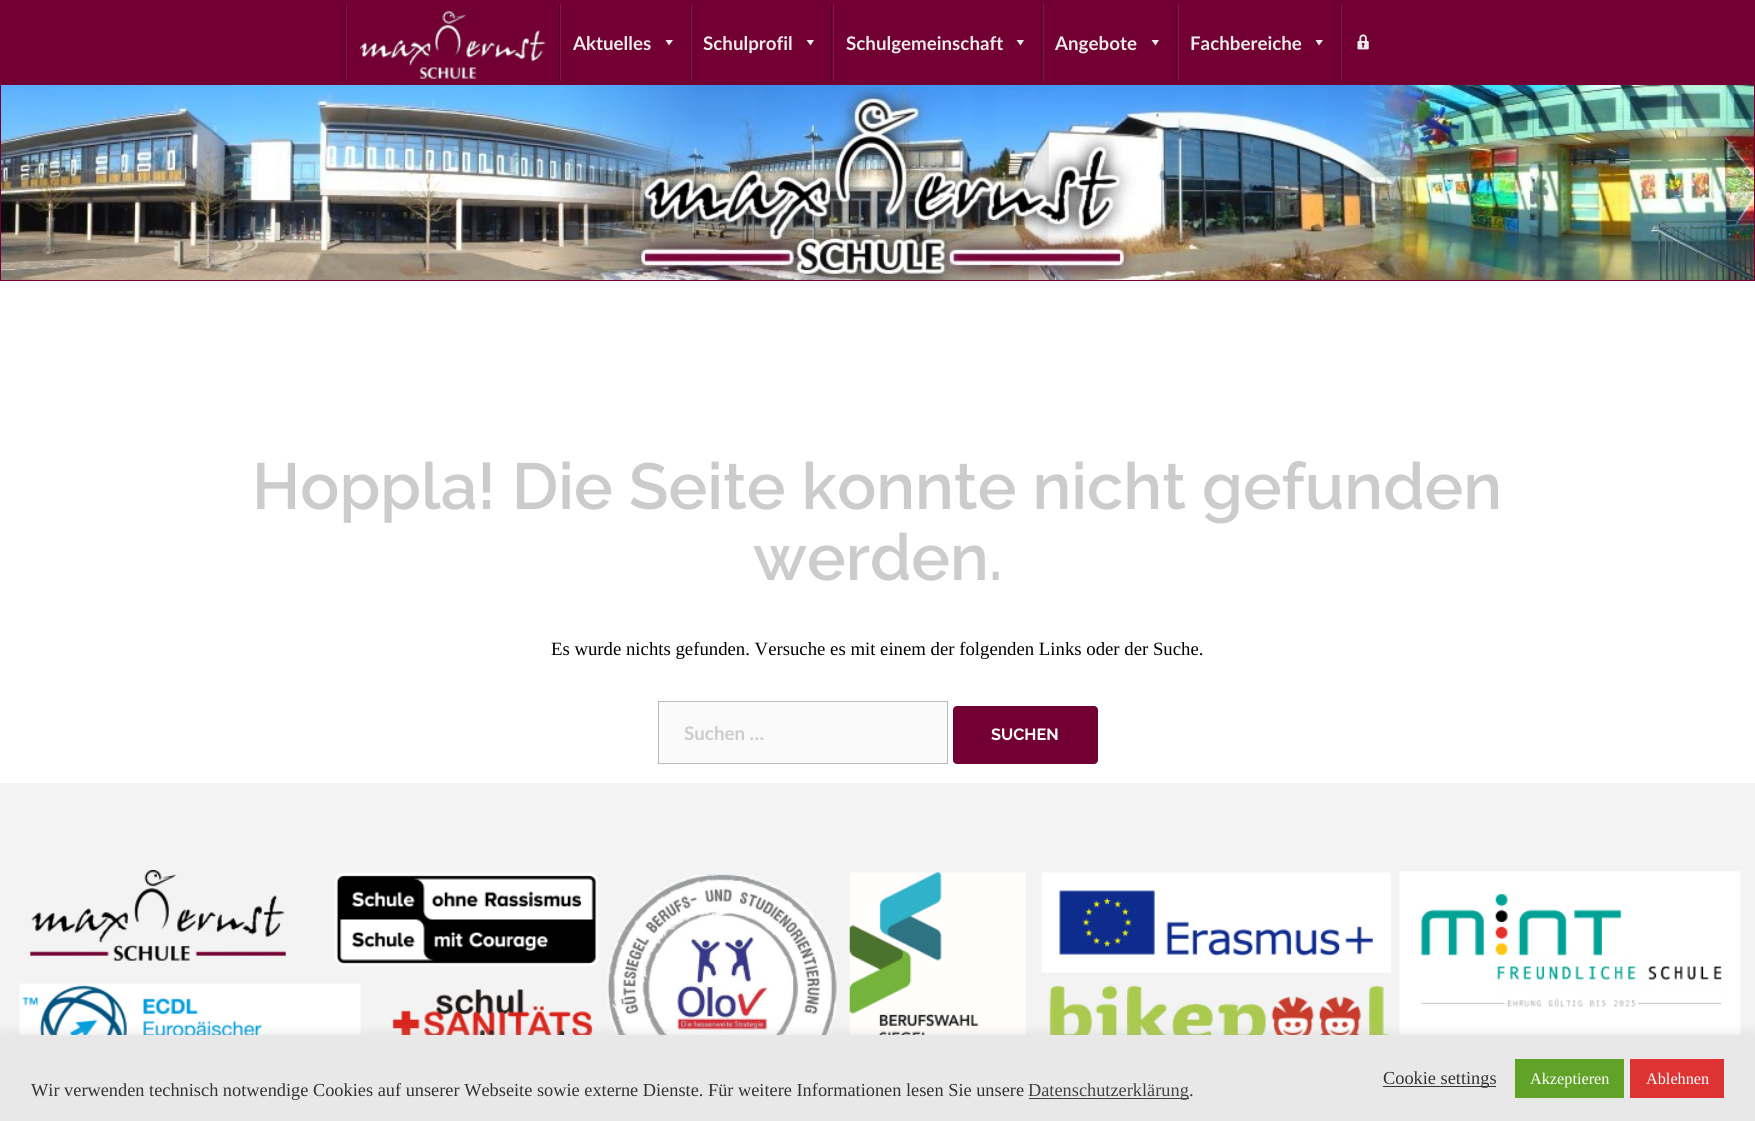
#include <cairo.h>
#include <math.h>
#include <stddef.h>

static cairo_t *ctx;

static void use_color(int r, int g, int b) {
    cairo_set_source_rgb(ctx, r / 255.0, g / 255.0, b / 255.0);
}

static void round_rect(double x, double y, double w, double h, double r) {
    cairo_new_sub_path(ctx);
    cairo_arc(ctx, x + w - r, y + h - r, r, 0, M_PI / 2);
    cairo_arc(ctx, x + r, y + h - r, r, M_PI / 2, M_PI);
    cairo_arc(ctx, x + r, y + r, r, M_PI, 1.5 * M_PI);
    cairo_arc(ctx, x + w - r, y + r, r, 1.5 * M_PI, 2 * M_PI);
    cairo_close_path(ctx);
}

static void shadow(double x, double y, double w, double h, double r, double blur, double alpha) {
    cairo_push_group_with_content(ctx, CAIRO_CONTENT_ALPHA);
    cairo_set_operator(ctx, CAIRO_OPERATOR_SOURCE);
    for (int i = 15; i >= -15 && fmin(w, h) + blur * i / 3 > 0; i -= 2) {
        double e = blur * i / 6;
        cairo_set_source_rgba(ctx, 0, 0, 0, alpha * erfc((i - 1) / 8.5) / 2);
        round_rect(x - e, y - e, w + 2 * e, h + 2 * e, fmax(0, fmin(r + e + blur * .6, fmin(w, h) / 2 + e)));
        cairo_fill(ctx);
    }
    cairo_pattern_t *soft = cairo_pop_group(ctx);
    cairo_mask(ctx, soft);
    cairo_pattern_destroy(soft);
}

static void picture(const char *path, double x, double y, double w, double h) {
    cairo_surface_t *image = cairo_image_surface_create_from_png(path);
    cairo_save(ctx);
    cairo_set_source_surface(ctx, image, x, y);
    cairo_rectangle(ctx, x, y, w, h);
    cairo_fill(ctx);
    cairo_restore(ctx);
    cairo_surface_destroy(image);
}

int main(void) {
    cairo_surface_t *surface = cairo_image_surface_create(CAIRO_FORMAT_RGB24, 1755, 1121);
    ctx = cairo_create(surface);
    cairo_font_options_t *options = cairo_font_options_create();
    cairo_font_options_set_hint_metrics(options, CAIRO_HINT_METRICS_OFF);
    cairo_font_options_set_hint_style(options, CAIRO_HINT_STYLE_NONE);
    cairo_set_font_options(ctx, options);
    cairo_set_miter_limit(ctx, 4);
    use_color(255, 255, 255);
    cairo_paint(ctx);
    use_color(114, 0, 51);
    cairo_rectangle(ctx, 0, 0, 1755, 85);
    cairo_fill(ctx);
    use_color(128, 26, 71);
    cairo_rectangle(ctx, 346, 4, 1, 77);
    cairo_fill(ctx);
    use_color(79, 2, 36);
    cairo_rectangle(ctx, 345, 4, 1, 77);
    cairo_fill(ctx);
    picture("img1.png", 359, 11, 187, 68);
    use_color(128, 26, 71);
    cairo_rectangle(ctx, 560, 4, 1, 77);
    cairo_fill(ctx);
    use_color(79, 2, 36);
    cairo_rectangle(ctx, 559, 4, 1, 77);
    cairo_fill(ctx);
    cairo_select_font_face(ctx, "Lato", CAIRO_FONT_SLANT_NORMAL, CAIRO_FONT_WEIGHT_BOLD);
    cairo_set_font_size(ctx, 18.75);
    use_color(234, 234, 234);
    cairo_move_to(ctx, 573, 50);
    cairo_show_text(ctx, "Aktuelles");
    cairo_new_path(ctx);
    cairo_move_to(ctx, 673, 40);
    cairo_line_to(ctx, 669, 45.5);
    cairo_line_to(ctx, 665.5, 40);
    cairo_close_path(ctx);
    cairo_fill(ctx);
    use_color(128, 26, 71);
    cairo_rectangle(ctx, 691, 4, 1, 77);
    cairo_fill(ctx);
    use_color(79, 2, 36);
    cairo_rectangle(ctx, 690, 4, 1, 77);
    cairo_fill(ctx);
    use_color(234, 234, 234);
    cairo_move_to(ctx, 703, 50);
    cairo_show_text(ctx, "Schulprofil");
    cairo_new_path(ctx);
    cairo_move_to(ctx, 814, 40);
    cairo_line_to(ctx, 810.5, 45.5);
    cairo_line_to(ctx, 806.5, 40);
    cairo_close_path(ctx);
    cairo_fill(ctx);
    use_color(128, 26, 71);
    cairo_rectangle(ctx, 833, 4, 1, 77);
    cairo_fill(ctx);
    use_color(79, 2, 36);
    cairo_rectangle(ctx, 831, 4, 1, 77);
    cairo_fill(ctx);
    use_color(234, 234, 234);
    cairo_move_to(ctx, 846, 50);
    cairo_show_text(ctx, "Schulgemeinschaft");
    cairo_new_path(ctx);
    cairo_move_to(ctx, 1024, 40);
    cairo_line_to(ctx, 1020.5, 45.5);
    cairo_line_to(ctx, 1016.5, 40);
    cairo_close_path(ctx);
    cairo_fill(ctx);
    use_color(128, 26, 71);
    cairo_rectangle(ctx, 1043, 4, 1, 77);
    cairo_fill(ctx);
    use_color(79, 2, 36);
    cairo_rectangle(ctx, 1041, 4, 1, 77);
    cairo_fill(ctx);
    use_color(234, 234, 234);
    cairo_move_to(ctx, 1055, 50);
    cairo_show_text(ctx, "Angebote");
    cairo_new_path(ctx);
    cairo_move_to(ctx, 1159, 40);
    cairo_line_to(ctx, 1155.5, 45.5);
    cairo_line_to(ctx, 1151.5, 40);
    cairo_close_path(ctx);
    cairo_fill(ctx);
    use_color(128, 26, 71);
    cairo_rectangle(ctx, 1178, 4, 1, 77);
    cairo_fill(ctx);
    use_color(79, 2, 36);
    cairo_rectangle(ctx, 1176, 4, 1, 77);
    cairo_fill(ctx);
    use_color(234, 234, 234);
    cairo_move_to(ctx, 1190, 50);
    cairo_show_text(ctx, "Fachbereiche");
    cairo_new_path(ctx);
    cairo_move_to(ctx, 1323, 40);
    cairo_line_to(ctx, 1319, 45.5);
    cairo_line_to(ctx, 1315.5, 40);
    cairo_close_path(ctx);
    cairo_fill(ctx);
    use_color(128, 26, 71);
    cairo_rectangle(ctx, 1341, 4, 1, 77);
    cairo_fill(ctx);
    use_color(79, 2, 36);
    cairo_rectangle(ctx, 1340, 4, 1, 77);
    cairo_fill(ctx);
    picture("img2.png", 1357, 34, 12, 16);
    picture("img3.png", 1, 85, 1753, 195);
    use_color(114, 0, 51);
    cairo_rectangle(ctx, 1754, 85, 1, 196);
    cairo_fill(ctx);
    cairo_rectangle(ctx, 0, 280, 1755, 1);
    cairo_fill(ctx);
    cairo_rectangle(ctx, 0, 85, 1, 196);
    cairo_fill(ctx);
    cairo_select_font_face(ctx, "Raleway SemiBold", CAIRO_FONT_SLANT_NORMAL, CAIRO_FONT_WEIGHT_NORMAL);
    cairo_set_font_size(ctx, 65);
    use_color(204, 204, 204);
    cairo_move_to(ctx, 252, 509);
    cairo_show_text(ctx, "Hoppla! Die Seite konnte nicht gefunden");
    cairo_move_to(ctx, 753, 580);
    cairo_show_text(ctx, "werden.");
    cairo_select_font_face(ctx, "Liberation Serif", CAIRO_FONT_SLANT_NORMAL, CAIRO_FONT_WEIGHT_NORMAL);
    cairo_set_font_size(ctx, 18.75);
    use_color(0, 0, 0);
    cairo_move_to(ctx, 551, 655);
    cairo_show_text(ctx, "Es wurde nichts gefunden. Versuche es mit einem der folgenden Links oder der Suche.");
    use_color(250, 250, 250);
    cairo_rectangle(ctx, 658.5, 701.5, 289, 62);
    cairo_fill_preserve(ctx);
    use_color(187, 187, 187);
    cairo_set_line_width(ctx, 1);
    cairo_stroke(ctx);
    cairo_select_font_face(ctx, "Lato", CAIRO_FONT_SLANT_NORMAL, CAIRO_FONT_WEIGHT_BOLD);
    use_color(204, 204, 204);
    cairo_move_to(ctx, 684, 740);
    cairo_show_text(ctx, "Suchen …");
    use_color(114, 0, 51);
    round_rect(953.5, 706.5, 144, 57, 3.5);
    cairo_fill_preserve(ctx);
    cairo_stroke(ctx);
    cairo_select_font_face(ctx, "Raleway", CAIRO_FONT_SLANT_NORMAL, CAIRO_FONT_WEIGHT_BOLD);
    cairo_set_font_size(ctx, 16.25);
    use_color(255, 255, 255);
    cairo_move_to(ctx, 991, 740);
    cairo_show_text(ctx, "SUCHEN");
    use_color(243, 243, 243);
    cairo_rectangle(ctx, 0, 783, 1755, 252);
    cairo_fill(ctx);
    picture("img4.png", 19, 870, 1722, 165);
    use_color(172, 171, 171);
    shadow(0, 1034, 1755, 86, 0, 6, 0.3);
    use_color(232, 232, 232);
    cairo_rectangle(ctx, 0, 1035, 1755, 86);
    cairo_fill(ctx);
    use_color(51, 51, 51);
    cairo_rectangle(ctx, 1383, 1086, 113, 1);
    cairo_fill(ctx);
    cairo_select_font_face(ctx, "Liberation Serif", CAIRO_FONT_SLANT_NORMAL, CAIRO_FONT_WEIGHT_NORMAL);
    cairo_set_font_size(ctx, 18.33);
    cairo_move_to(ctx, 1383, 1084);
    cairo_show_text(ctx, "Cookie settings");
    use_color(97, 162, 41);
    cairo_rectangle(ctx, 1515, 1059, 109, 39);
    cairo_fill(ctx);
    cairo_set_font_size(ctx, 16.25);
    use_color(255, 255, 255);
    cairo_move_to(ctx, 1530, 1084);
    cairo_show_text(ctx, "Akzeptieren");
    use_color(221, 51, 51);
    cairo_rectangle(ctx, 1630, 1059, 94, 39);
    cairo_fill(ctx);
    use_color(255, 255, 255);
    cairo_move_to(ctx, 1646, 1084);
    cairo_show_text(ctx, "Ablehnen");
    cairo_set_font_size(ctx, 18.33);
    use_color(51, 51, 51);
    cairo_move_to(ctx, 31, 1096);
    cairo_show_text(ctx, "Wir verwenden technisch notwendige Cookies auf unserer Webseite sowie externe Dienste. Für weitere Informationen lesen Sie unsere");
    use_color(68, 68, 68);
    cairo_rectangle(ctx, 1029, 1098, 160, 1);
    cairo_fill(ctx);
    cairo_move_to(ctx, 1028, 1096);
    cairo_show_text(ctx, "Datenschutzerklärung");
    use_color(51, 51, 51);
    cairo_move_to(ctx, 1189, 1096);
    cairo_show_text(ctx, ".");
    cairo_surface_write_to_png(surface, "result.png");
    cairo_font_options_destroy(options);
    cairo_destroy(ctx);
    cairo_surface_destroy(surface);
    return 0;
}
